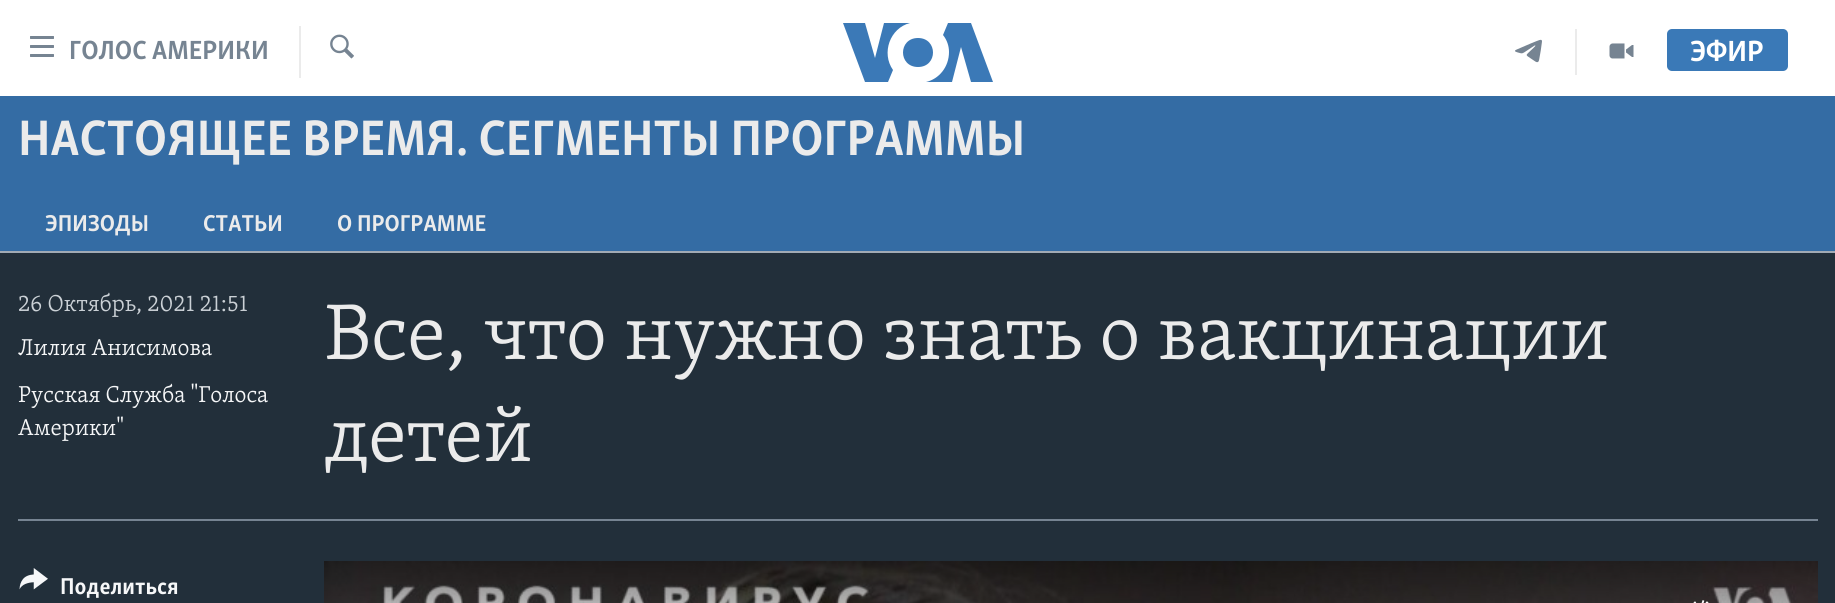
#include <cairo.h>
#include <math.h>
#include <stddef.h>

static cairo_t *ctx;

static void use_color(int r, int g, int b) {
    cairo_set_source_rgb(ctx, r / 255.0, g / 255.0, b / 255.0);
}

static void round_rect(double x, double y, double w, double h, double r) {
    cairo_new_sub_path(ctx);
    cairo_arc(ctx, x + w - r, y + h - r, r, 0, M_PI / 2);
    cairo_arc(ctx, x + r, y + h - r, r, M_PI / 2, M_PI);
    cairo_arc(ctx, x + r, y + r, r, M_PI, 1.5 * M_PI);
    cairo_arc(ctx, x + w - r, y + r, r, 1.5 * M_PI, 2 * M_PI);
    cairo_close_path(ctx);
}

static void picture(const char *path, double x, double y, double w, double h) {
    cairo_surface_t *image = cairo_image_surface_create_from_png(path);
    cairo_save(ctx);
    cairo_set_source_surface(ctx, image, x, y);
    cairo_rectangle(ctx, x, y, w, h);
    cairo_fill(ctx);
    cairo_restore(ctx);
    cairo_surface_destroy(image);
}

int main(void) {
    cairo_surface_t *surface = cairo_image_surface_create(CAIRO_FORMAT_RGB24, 1835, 603);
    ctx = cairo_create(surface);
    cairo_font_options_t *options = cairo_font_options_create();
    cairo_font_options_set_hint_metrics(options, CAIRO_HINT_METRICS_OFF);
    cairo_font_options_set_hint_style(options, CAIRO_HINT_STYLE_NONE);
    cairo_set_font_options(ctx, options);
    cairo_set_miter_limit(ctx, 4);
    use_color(255, 255, 255);
    cairo_paint(ctx);
    picture("img1.png", 30, 36, 24, 21);
    cairo_select_font_face(ctx, "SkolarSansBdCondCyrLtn", CAIRO_FONT_SLANT_NORMAL, CAIRO_FONT_WEIGHT_BOLD);
    cairo_set_font_size(ctx, 27);
    use_color(118, 132, 146);
    cairo_move_to(ctx, 69, 59);
    cairo_show_text(ctx, "ГОЛОС АМЕРИКИ");
    use_color(235, 235, 235);
    cairo_rectangle(ctx, 299, 26, 2, 52);
    cairo_fill(ctx);
    picture("img2.png", 330, 34, 24, 25);
    use_color(59, 121, 183);
    cairo_new_path(ctx);
    cairo_move_to(ctx, 893, 70);
    cairo_line_to(ctx, 888, 82);
    cairo_line_to(ctx, 865, 82);
    cairo_line_to(ctx, 843, 23);
    cairo_line_to(ctx, 865, 23);
    cairo_line_to(ctx, 875, 58);
    cairo_line_to(ctx, 884, 23);
    cairo_line_to(ctx, 910, 23);
    cairo_curve_to(ctx, 890, 28, 881, 53, 893, 70);
    cairo_close_path(ctx);
    cairo_move_to(ctx, 918, 38);
    cairo_curve_to(ctx, 898, 38, 898, 67, 918, 67);
    cairo_curve_to(ctx, 938, 67, 938, 38, 918, 38);
    cairo_close_path(ctx);
    cairo_move_to(ctx, 949, 52);
    cairo_curve_to(ctx, 949, 67, 939, 79, 926, 82);
    cairo_line_to(ctx, 952, 82);
    cairo_line_to(ctx, 961, 47);
    cairo_line_to(ctx, 971, 82);
    cairo_line_to(ctx, 993, 82);
    cairo_line_to(ctx, 971, 23);
    cairo_line_to(ctx, 948, 23);
    cairo_line_to(ctx, 943, 35);
    cairo_curve_to(ctx, 947, 40, 949, 46, 949, 52);
    cairo_close_path(ctx);
    cairo_fill(ctx);
    use_color(235, 235, 235);
    cairo_rectangle(ctx, 1575, 29, 2, 46);
    cairo_fill(ctx);
    picture("img3.png", 1515, 39, 27, 24);
    picture("img4.png", 1609, 43, 25, 16);
    use_color(58, 121, 183);
    round_rect(1667, 29, 121, 42, 5);
    cairo_fill(ctx);
    cairo_set_font_size(ctx, 30);
    use_color(255, 255, 255);
    cairo_move_to(ctx, 1690, 61);
    cairo_show_text(ctx, "ЭФИР");
    use_color(52, 108, 164);
    cairo_rectangle(ctx, 0, 96, 1835, 155);
    cairo_fill(ctx);
    cairo_set_font_size(ctx, 51.25);
    use_color(235, 235, 235);
    cairo_move_to(ctx, 18, 155);
    cairo_show_text(ctx, "НАСТОЯЩЕЕ ВРЕМЯ. СЕГМЕНТЫ ПРОГРАММЫ");
    cairo_set_font_size(ctx, 23.6);
    cairo_move_to(ctx, 45, 231);
    cairo_show_text(ctx, "ЭПИЗОДЫ");
    cairo_move_to(ctx, 203, 231);
    cairo_show_text(ctx, "СТАТЬИ");
    cairo_move_to(ctx, 337, 231);
    cairo_show_text(ctx, "O ПРОГРАММЕ");
    use_color(34, 47, 58);
    cairo_rectangle(ctx, 0, 253, 1835, 350);
    cairo_fill(ctx);
    use_color(161, 170, 180);
    cairo_rectangle(ctx, 0, 251, 1835, 2);
    cairo_fill(ctx);
    cairo_select_font_face(ctx, "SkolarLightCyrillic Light", CAIRO_FONT_SLANT_NORMAL, CAIRO_FONT_WEIGHT_NORMAL);
    use_color(203, 209, 214);
    cairo_move_to(ctx, 18, 311);
    cairo_show_text(ctx, "26 Октябрь, 2021 21:51");
    use_color(246, 247, 248);
    cairo_move_to(ctx, 18, 355);
    cairo_show_text(ctx, "Лилия Анисимова");
    cairo_move_to(ctx, 18, 402);
    cairo_show_text(ctx, "Русская Служба \"Голоса");
    cairo_move_to(ctx, 18, 435);
    cairo_show_text(ctx, "Америки\"");
    cairo_set_font_size(ctx, 81);
    use_color(235, 235, 235);
    cairo_move_to(ctx, 324, 359);
    cairo_show_text(ctx, "Все, что нужно знать о вакцинации");
    cairo_move_to(ctx, 324, 461);
    cairo_show_text(ctx, "детей");
    use_color(118, 132, 146);
    cairo_rectangle(ctx, 18, 519, 1800, 2);
    cairo_fill(ctx);
    picture("img5.png", 19, 568, 29, 22);
    cairo_select_font_face(ctx, "SkolarSansBdCondCyrLtn", CAIRO_FONT_SLANT_NORMAL, CAIRO_FONT_WEIGHT_BOLD);
    cairo_set_font_size(ctx, 23.6);
    use_color(246, 247, 248);
    cairo_move_to(ctx, 60, 594);
    cairo_show_text(ctx, "Поделиться");
    picture("img6.png", 324, 561, 1494, 42);
    picture("img7.png", 1693, 600, 16, 3);
    cairo_surface_write_to_png(surface, "result.png");
    cairo_font_options_destroy(options);
    cairo_destroy(ctx);
    cairo_surface_destroy(surface);
    return 0;
}
